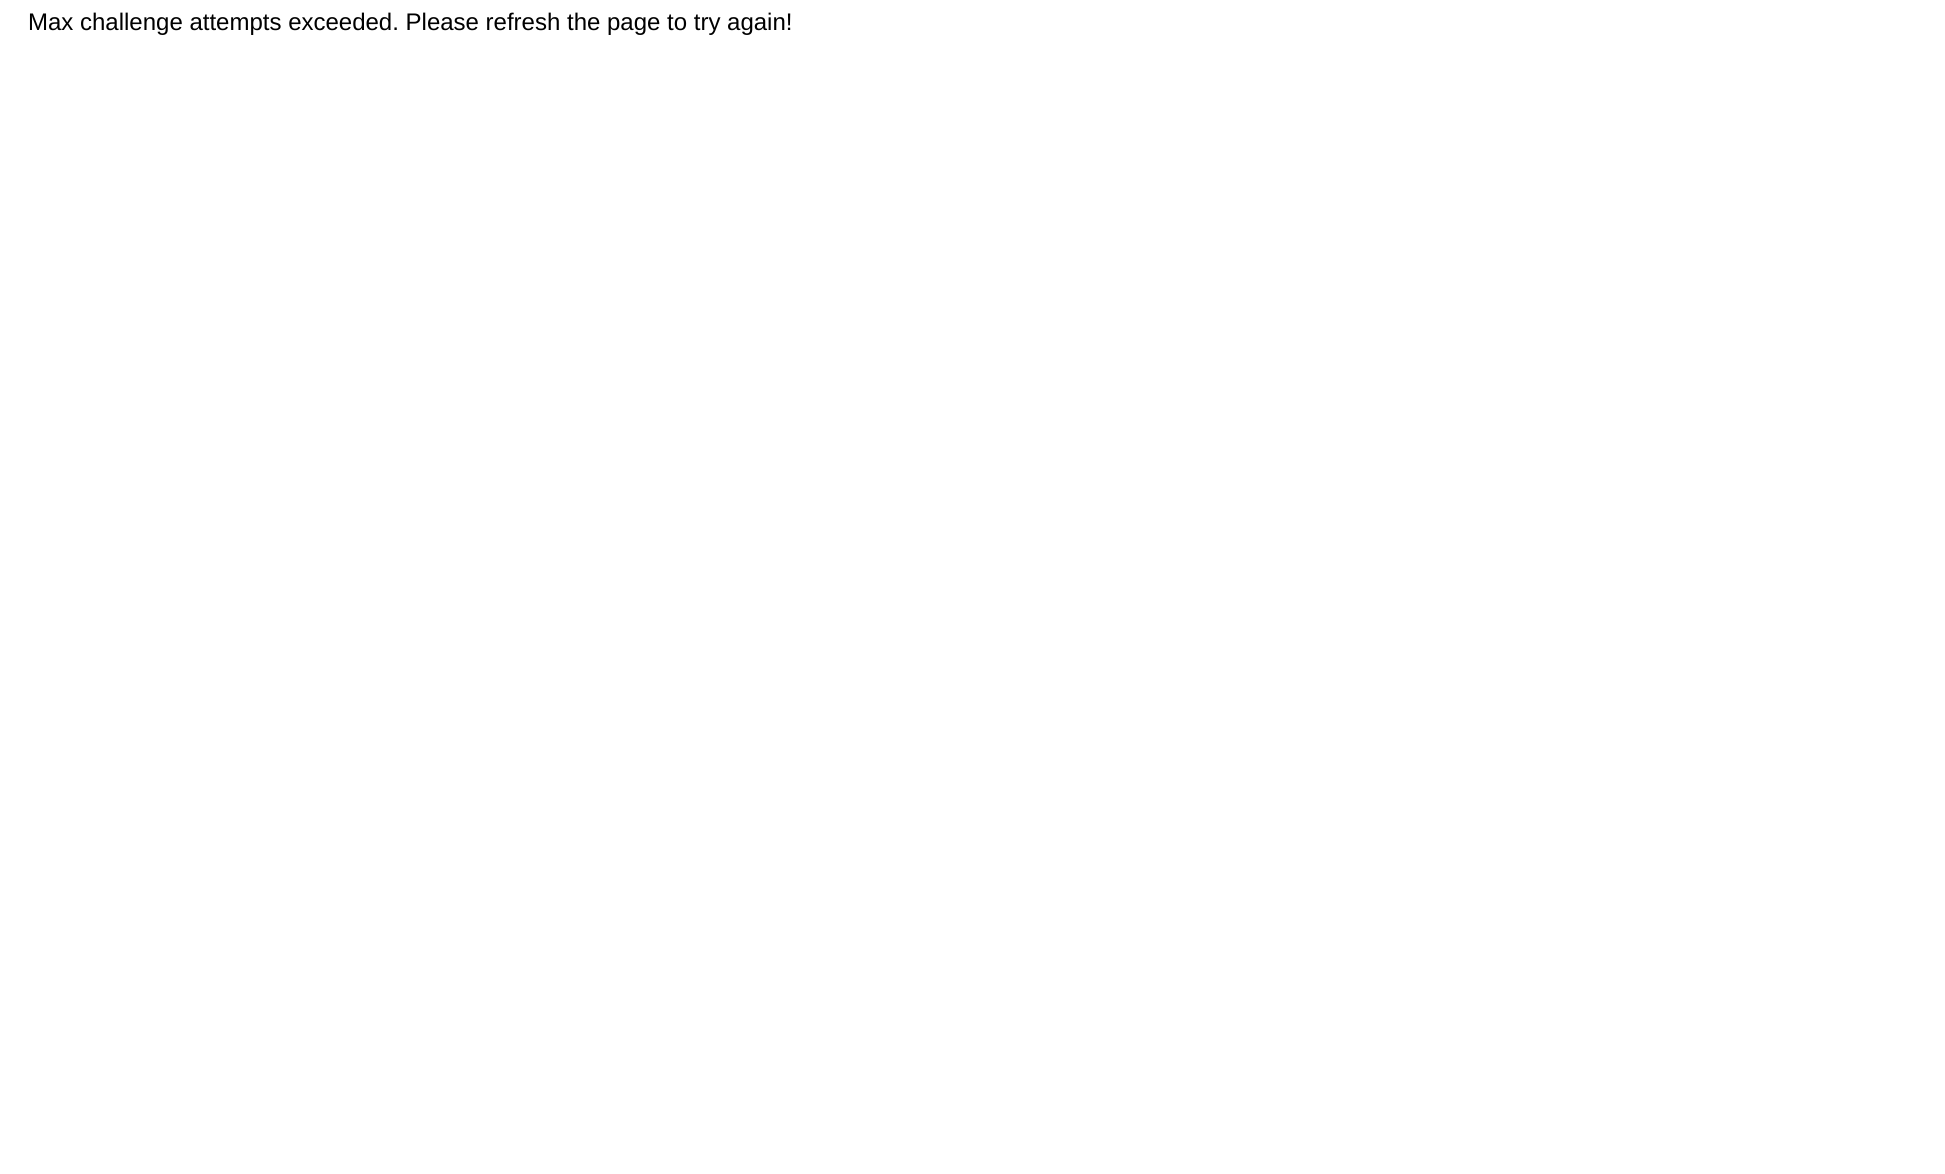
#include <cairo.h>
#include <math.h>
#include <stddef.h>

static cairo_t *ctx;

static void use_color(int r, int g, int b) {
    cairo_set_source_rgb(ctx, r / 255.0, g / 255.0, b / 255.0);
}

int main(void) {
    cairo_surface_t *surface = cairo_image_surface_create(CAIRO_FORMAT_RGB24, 1945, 1174);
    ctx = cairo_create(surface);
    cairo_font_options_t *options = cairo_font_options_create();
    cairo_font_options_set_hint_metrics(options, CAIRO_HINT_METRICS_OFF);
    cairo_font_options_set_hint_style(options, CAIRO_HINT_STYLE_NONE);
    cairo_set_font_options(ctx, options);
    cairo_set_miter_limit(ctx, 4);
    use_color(255, 255, 255);
    cairo_paint(ctx);
    cairo_select_font_face(ctx, "Liberation Sans", CAIRO_FONT_SLANT_NORMAL, CAIRO_FONT_WEIGHT_NORMAL);
    cairo_set_font_size(ctx, 24);
    use_color(0, 0, 0);
    cairo_move_to(ctx, 28, 30);
    cairo_show_text(ctx, "Max challenge attempts exceeded. Please refresh the page to try again!");
    cairo_surface_write_to_png(surface, "result.png");
    cairo_font_options_destroy(options);
    cairo_destroy(ctx);
    cairo_surface_destroy(surface);
    return 0;
}
